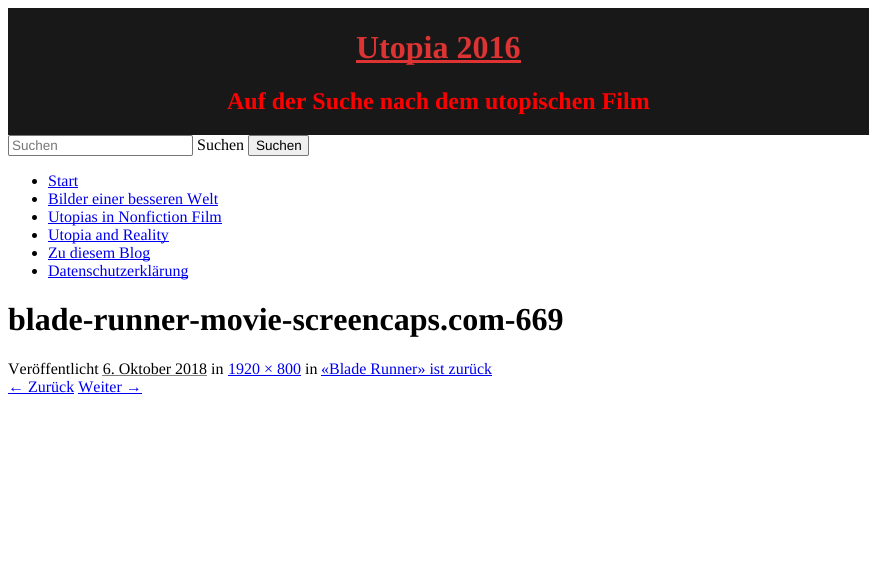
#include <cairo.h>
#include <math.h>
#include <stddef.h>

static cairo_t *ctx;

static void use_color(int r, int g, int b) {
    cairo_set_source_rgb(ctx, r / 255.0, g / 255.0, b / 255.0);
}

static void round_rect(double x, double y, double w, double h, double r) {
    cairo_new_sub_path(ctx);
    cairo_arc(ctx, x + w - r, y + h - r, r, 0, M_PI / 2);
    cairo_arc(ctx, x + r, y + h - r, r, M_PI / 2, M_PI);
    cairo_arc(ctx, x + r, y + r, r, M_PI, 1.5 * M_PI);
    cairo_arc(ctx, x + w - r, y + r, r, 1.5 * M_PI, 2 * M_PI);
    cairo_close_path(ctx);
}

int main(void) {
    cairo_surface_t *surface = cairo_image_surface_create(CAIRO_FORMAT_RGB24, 877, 568);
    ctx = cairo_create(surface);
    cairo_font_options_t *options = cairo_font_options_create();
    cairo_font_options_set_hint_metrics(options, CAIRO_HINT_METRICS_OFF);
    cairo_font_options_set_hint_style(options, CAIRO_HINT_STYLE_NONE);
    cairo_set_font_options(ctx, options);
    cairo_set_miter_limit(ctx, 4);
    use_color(255, 255, 255);
    cairo_paint(ctx);
    use_color(24, 24, 24);
    cairo_rectangle(ctx, 8, 8, 861, 127);
    cairo_fill(ctx);
    use_color(221, 51, 51);
    cairo_rectangle(ctx, 356, 60, 165, 3);
    cairo_fill(ctx);
    cairo_select_font_face(ctx, "Liberation Serif", CAIRO_FONT_SLANT_NORMAL, CAIRO_FONT_WEIGHT_BOLD);
    cairo_set_font_size(ctx, 32);
    cairo_move_to(ctx, 356, 58);
    cairo_show_text(ctx, "Utopia 2016");
    cairo_set_font_size(ctx, 24);
    use_color(255, 0, 0);
    cairo_move_to(ctx, 227, 109);
    cairo_show_text(ctx, "Auf der Suche nach dem utopischen Film");
    round_rect(8.5, 135.5, 184, 20, 1.5);
    use_color(118, 118, 118);
    cairo_set_line_width(ctx, 1);
    cairo_stroke(ctx);
    cairo_select_font_face(ctx, "Liberation Sans", CAIRO_FONT_SLANT_NORMAL, CAIRO_FONT_WEIGHT_NORMAL);
    cairo_set_font_size(ctx, 13.5);
    use_color(117, 117, 117);
    cairo_move_to(ctx, 12, 150);
    cairo_show_text(ctx, "Suchen");
    cairo_select_font_face(ctx, "Liberation Serif", CAIRO_FONT_SLANT_NORMAL, CAIRO_FONT_WEIGHT_NORMAL);
    cairo_set_font_size(ctx, 16);
    use_color(0, 0, 0);
    cairo_move_to(ctx, 197, 150);
    cairo_show_text(ctx, "Suchen");
    use_color(239, 239, 239);
    round_rect(248.5, 135.5, 60, 20, 1.5);
    cairo_fill_preserve(ctx);
    use_color(118, 118, 118);
    cairo_stroke(ctx);
    cairo_select_font_face(ctx, "Liberation Sans", CAIRO_FONT_SLANT_NORMAL, CAIRO_FONT_WEIGHT_NORMAL);
    cairo_set_font_size(ctx, 13.5);
    use_color(0, 0, 0);
    cairo_move_to(ctx, 256, 150);
    cairo_show_text(ctx, "Suchen");
    cairo_new_path(ctx);
    cairo_arc(ctx, 34.5, 181.5, 2.5, 0, 2 * M_PI);
    cairo_fill(ctx);
    cairo_select_font_face(ctx, "Liberation Serif", CAIRO_FONT_SLANT_NORMAL, CAIRO_FONT_WEIGHT_NORMAL);
    cairo_set_font_size(ctx, 16);
    use_color(0, 0, 238);
    cairo_move_to(ctx, 48, 186);
    cairo_show_text(ctx, "Start");
    cairo_rectangle(ctx, 48, 187, 30, 1);
    cairo_fill(ctx);
    use_color(0, 0, 0);
    cairo_arc(ctx, 34.5, 199.5, 2.5, 0, 2 * M_PI);
    cairo_fill(ctx);
    use_color(0, 0, 238);
    cairo_move_to(ctx, 48, 204);
    cairo_show_text(ctx, "Bilder einer besseren Welt");
    cairo_rectangle(ctx, 48, 205, 170, 1);
    cairo_fill(ctx);
    use_color(0, 0, 0);
    cairo_arc(ctx, 34.5, 217.5, 2.5, 0, 2 * M_PI);
    cairo_fill(ctx);
    use_color(0, 0, 238);
    cairo_rectangle(ctx, 48, 223, 174, 1);
    cairo_fill(ctx);
    cairo_move_to(ctx, 48, 222);
    cairo_show_text(ctx, "Utopias in Nonfiction Film");
    use_color(0, 0, 0);
    cairo_new_path(ctx);
    cairo_arc(ctx, 34.5, 235.5, 2.5, 0, 2 * M_PI);
    cairo_fill(ctx);
    use_color(0, 0, 238);
    cairo_rectangle(ctx, 48, 241, 121, 1);
    cairo_fill(ctx);
    cairo_move_to(ctx, 48, 240);
    cairo_show_text(ctx, "Utopia and Reality");
    use_color(0, 0, 0);
    cairo_new_path(ctx);
    cairo_arc(ctx, 34.5, 253.5, 2.5, 0, 2 * M_PI);
    cairo_fill(ctx);
    use_color(0, 0, 238);
    cairo_rectangle(ctx, 48, 259, 102, 1);
    cairo_fill(ctx);
    cairo_move_to(ctx, 48, 258);
    cairo_show_text(ctx, "Zu diesem Blog");
    use_color(0, 0, 0);
    cairo_new_path(ctx);
    cairo_arc(ctx, 34.5, 271.5, 2.5, 0, 2 * M_PI);
    cairo_fill(ctx);
    use_color(0, 0, 238);
    cairo_rectangle(ctx, 48, 277, 140, 1);
    cairo_fill(ctx);
    cairo_move_to(ctx, 48, 276);
    cairo_show_text(ctx, "Datenschutzerklärung");
    cairo_select_font_face(ctx, "Liberation Serif", CAIRO_FONT_SLANT_NORMAL, CAIRO_FONT_WEIGHT_BOLD);
    cairo_set_font_size(ctx, 32);
    use_color(0, 0, 0);
    cairo_move_to(ctx, 8, 330);
    cairo_show_text(ctx, "blade-runner-movie-screencaps.com-669");
    cairo_select_font_face(ctx, "Liberation Serif", CAIRO_FONT_SLANT_NORMAL, CAIRO_FONT_WEIGHT_NORMAL);
    cairo_set_font_size(ctx, 16);
    cairo_move_to(ctx, 8, 374);
    cairo_show_text(ctx, "Veröffentlicht 6. Oktober 2018 in");
    use_color(0, 0, 238);
    cairo_move_to(ctx, 228, 374);
    cairo_show_text(ctx, "1920 × 800");
    cairo_rectangle(ctx, 228, 375, 73, 1);
    cairo_fill(ctx);
    use_color(0, 0, 0);
    cairo_move_to(ctx, 305, 374);
    cairo_show_text(ctx, "in");
    use_color(0, 0, 238);
    cairo_move_to(ctx, 321, 374);
    cairo_show_text(ctx, "«Blade Runner» ist zurück");
    cairo_rectangle(ctx, 321, 375, 171, 1);
    cairo_fill(ctx);
    cairo_new_path(ctx);
    cairo_move_to(ctx, 102.5, 375.5);
    cairo_line_to(ctx, 207, 375.5);
    use_color(0, 0, 0);
    cairo_set_dash(ctx, (double[]){1, 1}, 2, 0);
    cairo_stroke(ctx);
    use_color(0, 0, 238);
    cairo_move_to(ctx, 8, 392);
    cairo_show_text(ctx, "← Zurück Weiter →");
    cairo_rectangle(ctx, 8, 393, 66, 1);
    cairo_fill(ctx);
    cairo_rectangle(ctx, 78, 393, 64, 1);
    cairo_fill(ctx);
    cairo_surface_write_to_png(surface, "result.png");
    cairo_font_options_destroy(options);
    cairo_destroy(ctx);
    cairo_surface_destroy(surface);
    return 0;
}
